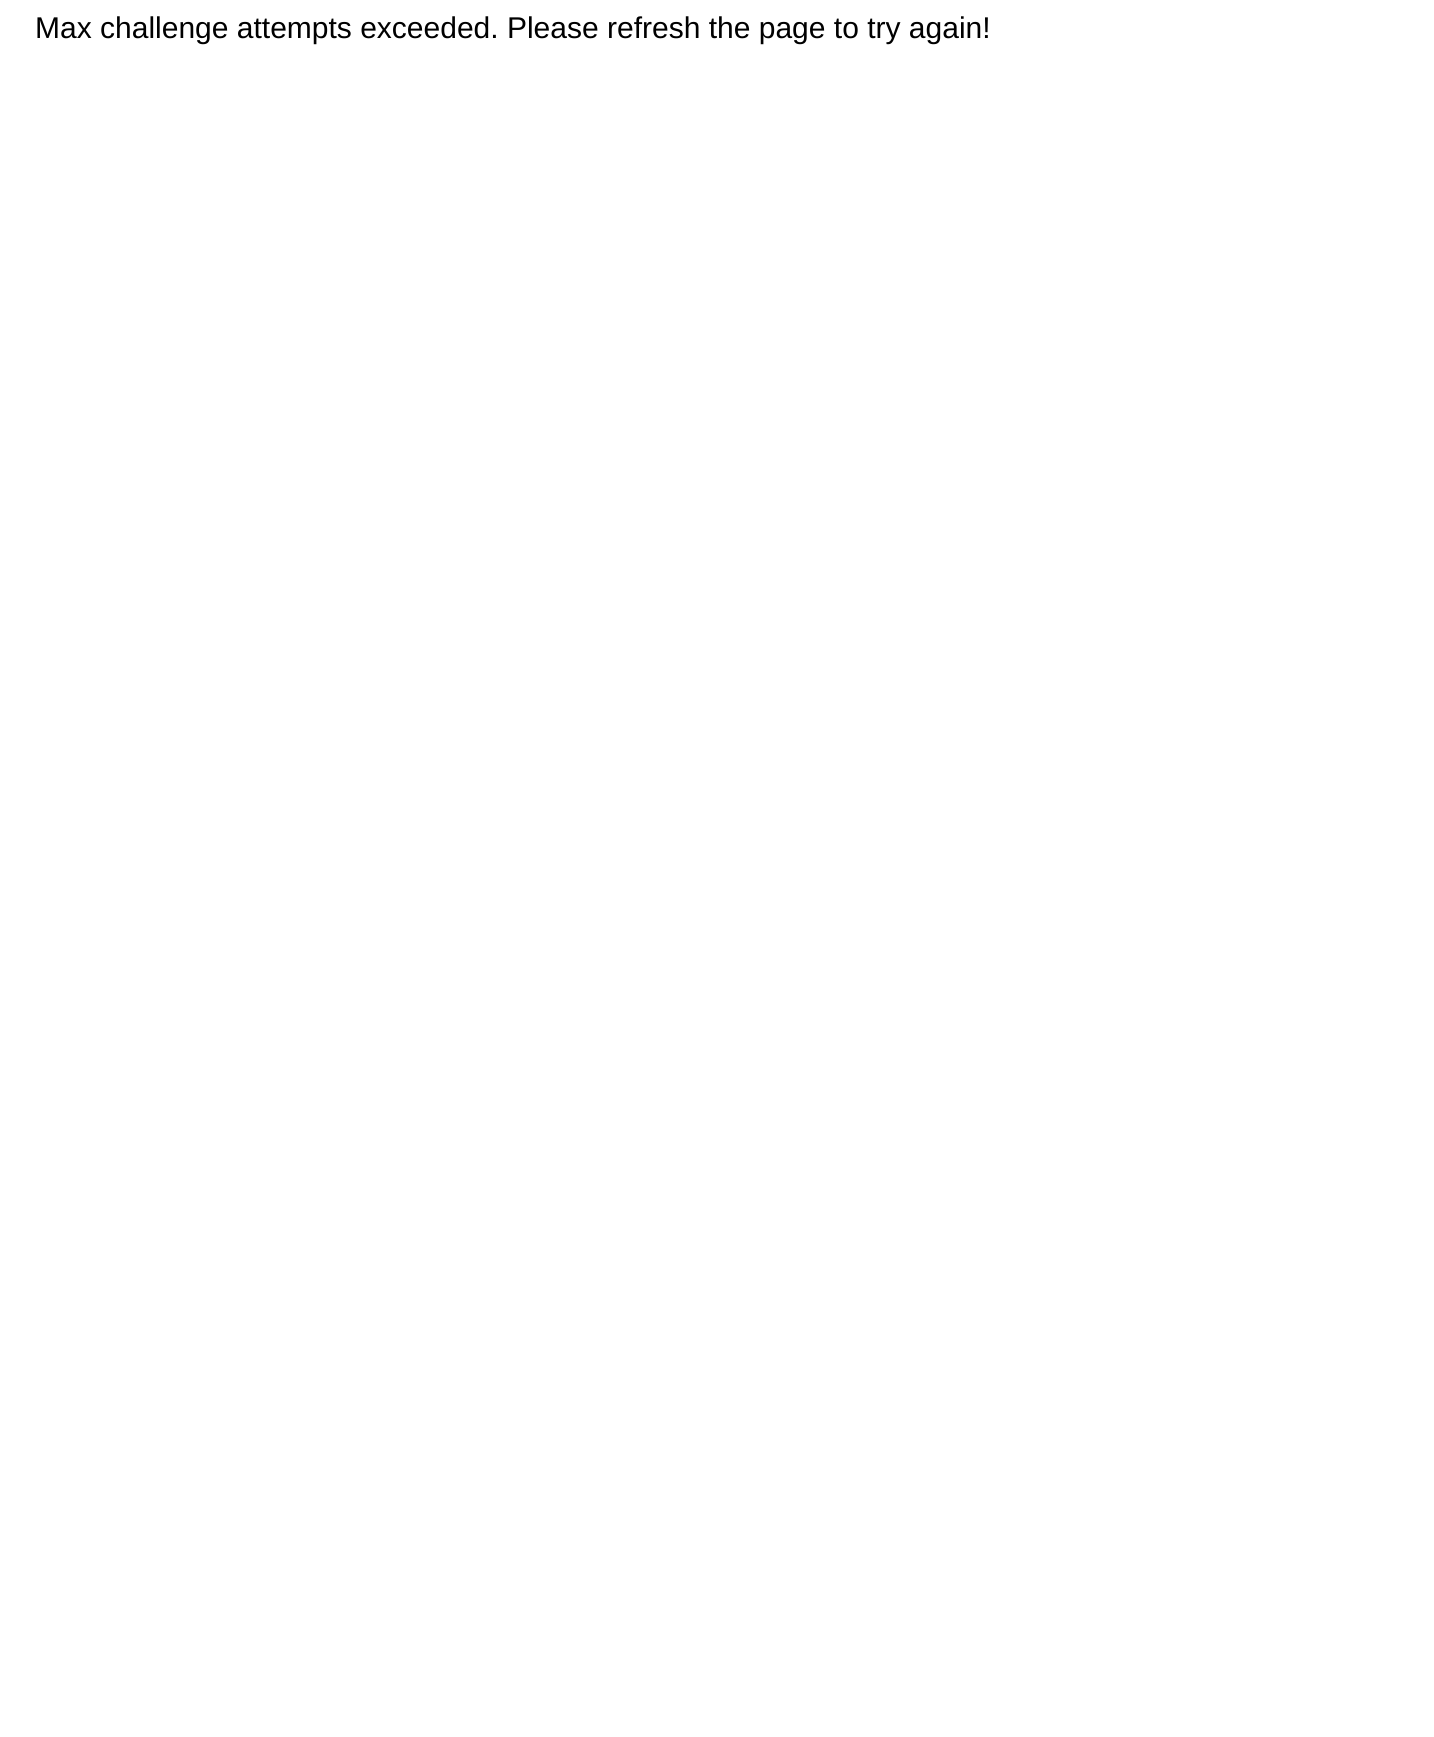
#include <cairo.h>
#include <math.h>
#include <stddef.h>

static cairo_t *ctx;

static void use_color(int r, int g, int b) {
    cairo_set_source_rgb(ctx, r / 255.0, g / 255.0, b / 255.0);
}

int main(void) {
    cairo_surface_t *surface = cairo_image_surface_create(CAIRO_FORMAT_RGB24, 1434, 1737);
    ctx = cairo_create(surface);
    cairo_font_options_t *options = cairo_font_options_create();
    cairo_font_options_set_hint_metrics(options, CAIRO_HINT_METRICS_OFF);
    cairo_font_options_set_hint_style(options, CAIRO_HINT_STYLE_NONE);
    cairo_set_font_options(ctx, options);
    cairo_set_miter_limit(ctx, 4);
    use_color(255, 255, 255);
    cairo_paint(ctx);
    cairo_select_font_face(ctx, "Liberation Sans", CAIRO_FONT_SLANT_NORMAL, CAIRO_FONT_WEIGHT_NORMAL);
    cairo_set_font_size(ctx, 30);
    use_color(0, 0, 0);
    cairo_move_to(ctx, 35, 38);
    cairo_show_text(ctx, "Max challenge attempts exceeded. Please refresh the page to try again!");
    cairo_surface_write_to_png(surface, "result.png");
    cairo_font_options_destroy(options);
    cairo_destroy(ctx);
    cairo_surface_destroy(surface);
    return 0;
}
